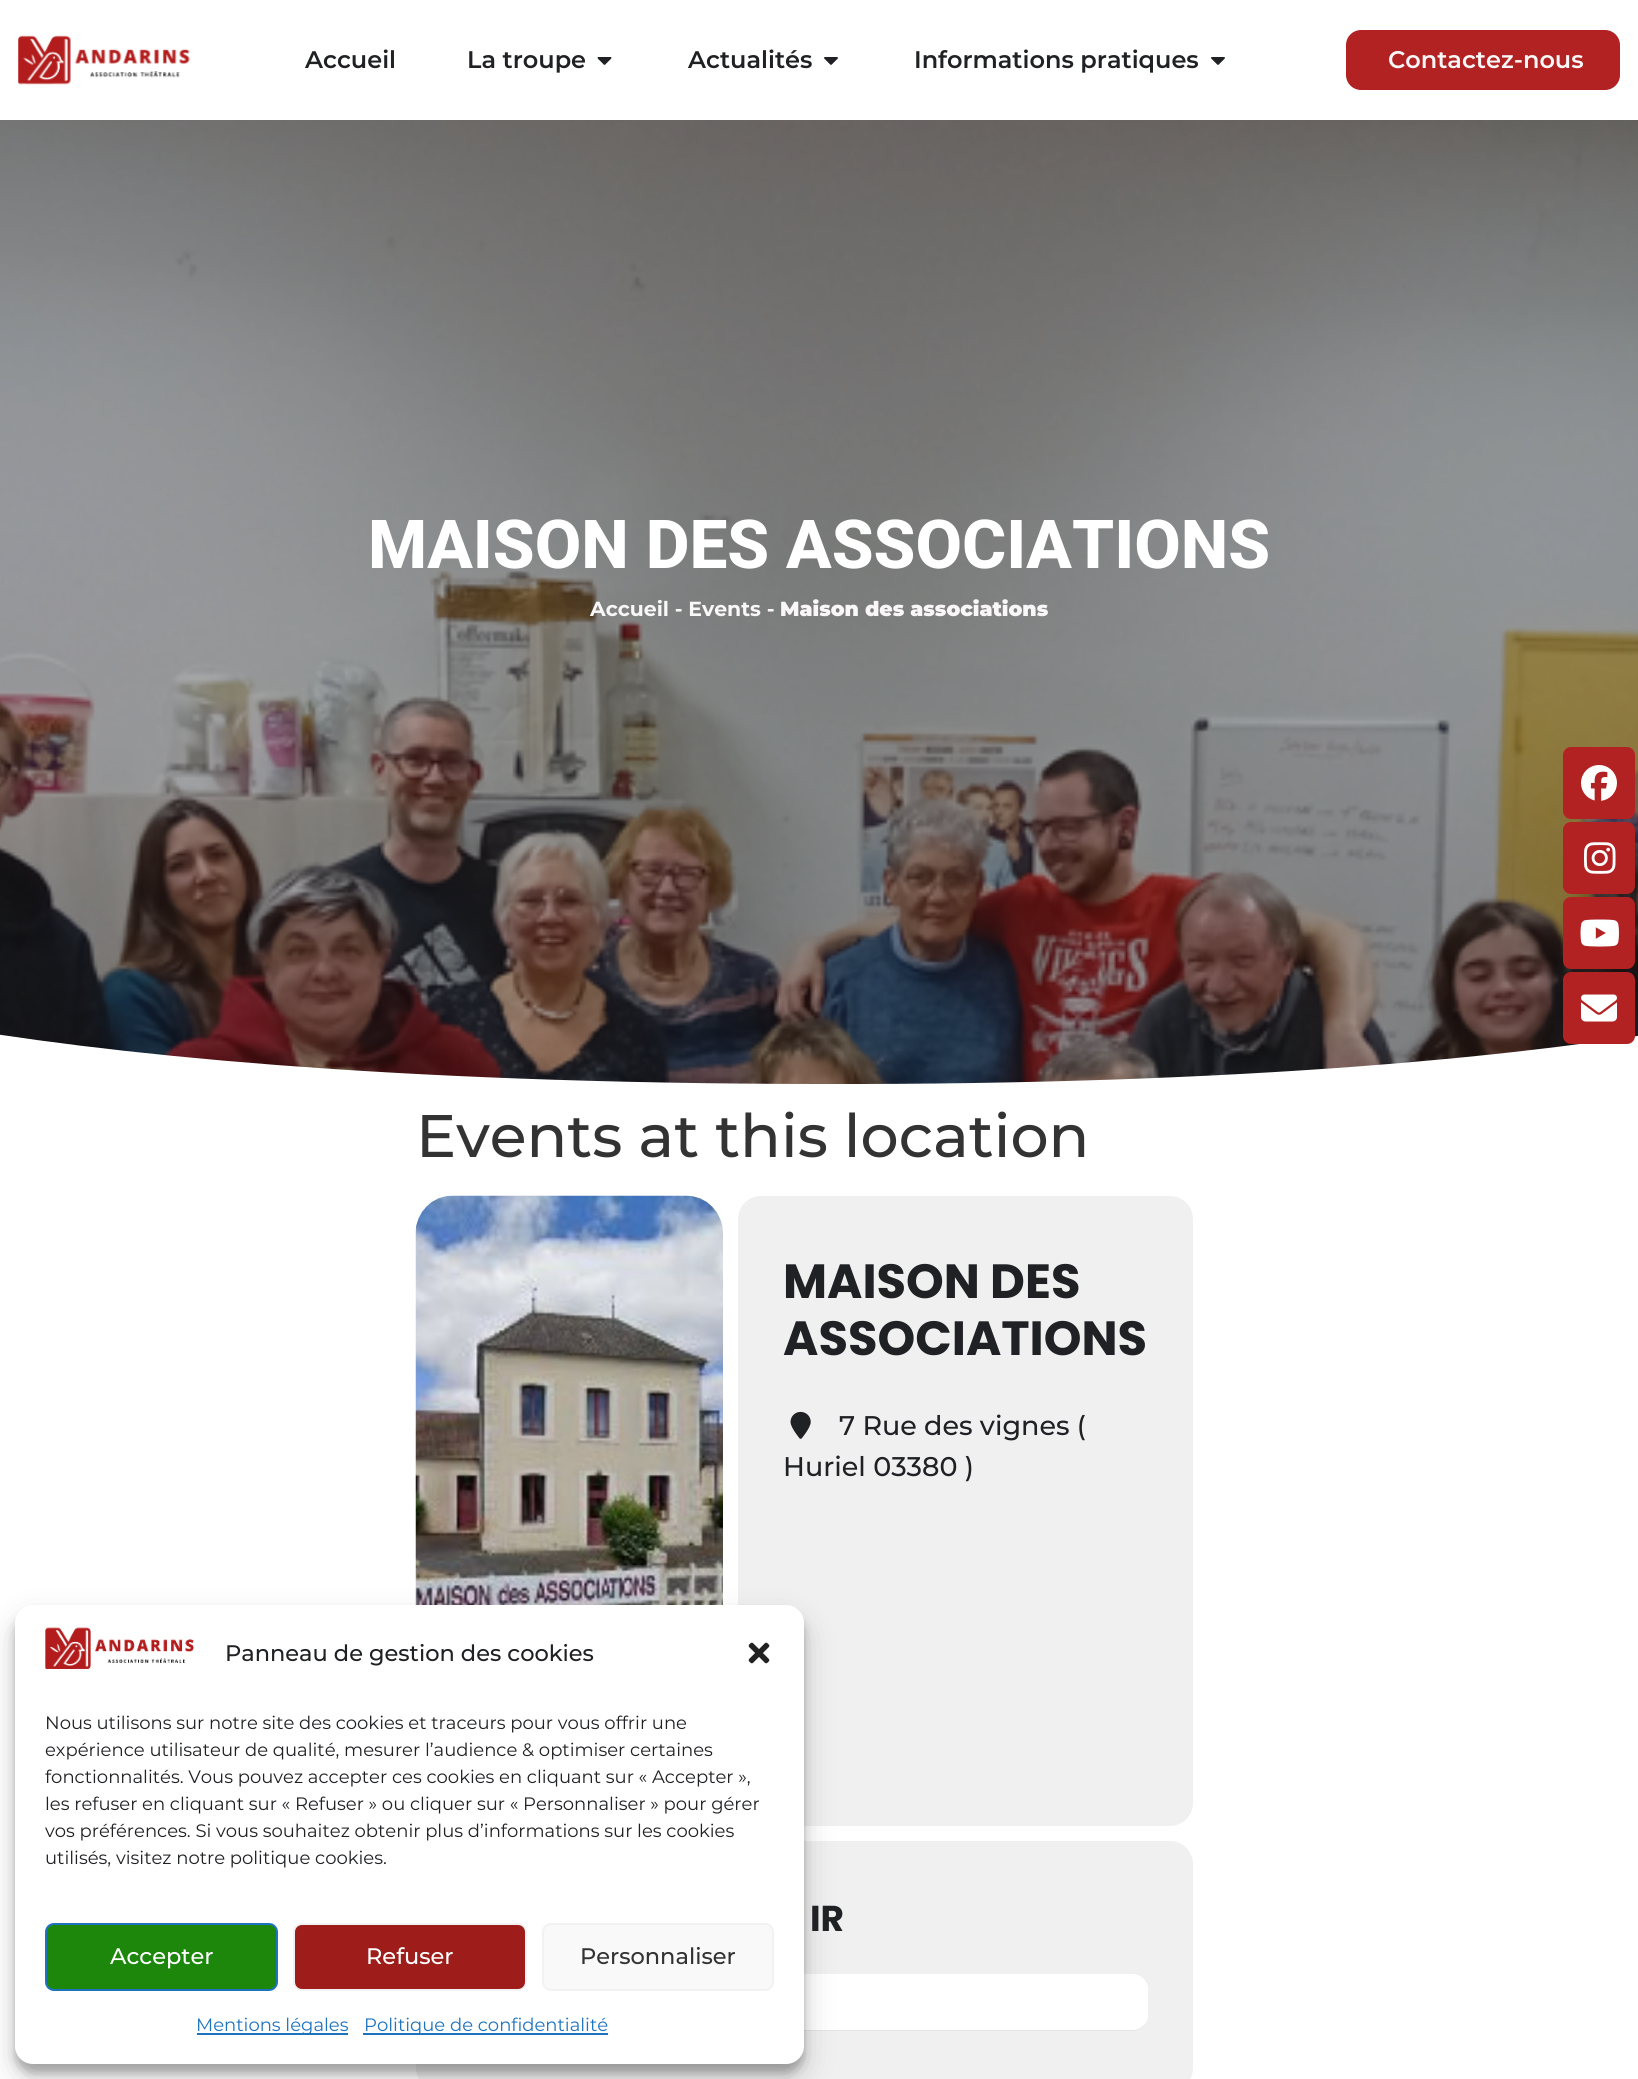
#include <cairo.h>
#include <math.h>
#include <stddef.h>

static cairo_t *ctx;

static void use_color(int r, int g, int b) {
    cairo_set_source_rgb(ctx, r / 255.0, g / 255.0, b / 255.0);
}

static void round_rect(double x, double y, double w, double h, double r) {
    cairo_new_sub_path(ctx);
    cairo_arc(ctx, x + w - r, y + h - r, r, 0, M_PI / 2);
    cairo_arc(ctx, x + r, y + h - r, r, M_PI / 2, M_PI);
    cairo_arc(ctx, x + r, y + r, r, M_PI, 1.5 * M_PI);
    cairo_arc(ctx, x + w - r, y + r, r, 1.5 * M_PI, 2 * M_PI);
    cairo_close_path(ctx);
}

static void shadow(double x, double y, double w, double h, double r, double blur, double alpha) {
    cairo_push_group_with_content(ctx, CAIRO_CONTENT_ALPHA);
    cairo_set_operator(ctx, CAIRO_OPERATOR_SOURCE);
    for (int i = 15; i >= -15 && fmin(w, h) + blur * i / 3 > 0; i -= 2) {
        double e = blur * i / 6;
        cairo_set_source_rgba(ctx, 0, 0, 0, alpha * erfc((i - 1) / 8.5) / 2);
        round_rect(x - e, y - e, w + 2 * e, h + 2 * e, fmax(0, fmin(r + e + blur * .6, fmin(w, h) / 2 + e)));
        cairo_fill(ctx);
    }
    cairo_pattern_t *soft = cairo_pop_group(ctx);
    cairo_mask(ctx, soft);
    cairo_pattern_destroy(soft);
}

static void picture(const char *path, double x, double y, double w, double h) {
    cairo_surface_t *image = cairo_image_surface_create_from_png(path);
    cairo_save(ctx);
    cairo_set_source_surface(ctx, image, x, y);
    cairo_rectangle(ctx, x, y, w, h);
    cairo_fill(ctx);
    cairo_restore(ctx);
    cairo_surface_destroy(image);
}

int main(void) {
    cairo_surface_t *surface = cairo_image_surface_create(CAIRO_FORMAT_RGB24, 1638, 2079);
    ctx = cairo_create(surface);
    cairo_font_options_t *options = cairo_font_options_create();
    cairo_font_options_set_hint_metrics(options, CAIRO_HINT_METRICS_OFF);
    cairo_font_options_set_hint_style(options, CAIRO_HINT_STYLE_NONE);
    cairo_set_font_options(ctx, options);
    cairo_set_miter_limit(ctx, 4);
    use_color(255, 255, 255);
    cairo_paint(ctx);
    picture("img1.png", 18, 35, 173, 50);
    cairo_select_font_face(ctx, "Montserrat SemiBold", CAIRO_FONT_SLANT_NORMAL, CAIRO_FONT_WEIGHT_NORMAL);
    cairo_set_font_size(ctx, 24);
    use_color(32, 33, 36);
    cairo_move_to(ctx, 305, 68);
    cairo_show_text(ctx, "Accueil");
    cairo_move_to(ctx, 467, 68);
    cairo_show_text(ctx, "La troupe");
    picture("img2.png", 597, 57, 15, 8);
    cairo_move_to(ctx, 688, 68);
    cairo_show_text(ctx, "Actualités");
    picture("img3.png", 824, 57, 14, 8);
    cairo_move_to(ctx, 914, 68);
    cairo_show_text(ctx, "Informations pratiques");
    picture("img3.png", 1211, 57, 14, 8);
    use_color(178, 34, 34);
    round_rect(1346, 30, 274, 60, 15);
    cairo_fill(ctx);
    use_color(249, 247, 247);
    cairo_move_to(ctx, 1388, 68);
    cairo_show_text(ctx, "Contactez-nous");
    picture("img4.png", 0, 120, 1638, 964);
    cairo_select_font_face(ctx, "Roboto ExtraBold", CAIRO_FONT_SLANT_NORMAL, CAIRO_FONT_WEIGHT_NORMAL);
    cairo_set_font_size(ctx, 67.5);
    use_color(255, 255, 255);
    cairo_move_to(ctx, 368, 568);
    cairo_show_text(ctx, "MAISON DES ASSOCIATIONS");
    cairo_select_font_face(ctx, "Montserrat", CAIRO_FONT_SLANT_NORMAL, CAIRO_FONT_WEIGHT_BOLD);
    cairo_set_font_size(ctx, 20.4);
    use_color(249, 247, 247);
    cairo_move_to(ctx, 590, 616);
    cairo_show_text(ctx, "Accueil - Events -");
    cairo_select_font_face(ctx, "Montserrat Black", CAIRO_FONT_SLANT_NORMAL, CAIRO_FONT_WEIGHT_NORMAL);
    cairo_move_to(ctx, 780, 616);
    cairo_show_text(ctx, "Maison des associations");
    use_color(255, 255, 255);
    cairo_new_path(ctx);
    cairo_move_to(ctx, 819, 1084);
    cairo_curve_to(ctx, -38, 1083, -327, 969, -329, 939);
    cairo_line_to(ctx, -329, 1089);
    cairo_line_to(ctx, 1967, 1089);
    cairo_line_to(ctx, 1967, 940);
    cairo_curve_to(ctx, 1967, 968, 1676, 1086, 819, 1084);
    cairo_close_path(ctx);
    cairo_fill(ctx);
    use_color(178, 34, 34);
    round_rect(1563, 747, 72, 72, 8);
    cairo_fill(ctx);
    picture("img5.png", 1581, 765, 36, 36);
    round_rect(1563, 822, 72, 72, 8);
    cairo_fill(ctx);
    picture("img6.png", 1584, 842, 32, 32);
    round_rect(1563, 897, 72, 72, 8);
    cairo_fill(ctx);
    picture("img7.png", 1580, 919, 39, 28);
    round_rect(1563, 972, 72, 72, 8);
    cairo_fill(ctx);
    picture("img8.png", 1581, 994, 36, 28);
    picture("img11.png", 415, 1195, 308, 410);
    use_color(240, 240, 240);
    round_rect(738, 1196, 455, 630, 23);
    cairo_fill(ctx);
    round_rect(416, 1841, 777, 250, 23);
    cairo_fill(ctx);
    use_color(229, 229, 229);
    cairo_new_path(ctx);
    cairo_move_to(ctx, 476, 1974);
    cairo_curve_to(ctx, 469, 1974, 464, 1978, 461, 1983);
    cairo_line_to(ctx, 461, 1986);
    cairo_line_to(ctx, 461, 2019);
    cairo_line_to(ctx, 461, 2022);
    cairo_curve_to(ctx, 464, 2027, 469, 2031, 476, 2031);
    cairo_line_to(ctx, 1132, 2031);
    cairo_curve_to(ctx, 1141, 2031, 1148, 2024, 1148, 2016);
    cairo_curve_to(ctx, 1148, 2023, 1141, 2030, 1132, 2030);
    cairo_line_to(ctx, 476, 2030);
    cairo_curve_to(ctx, 468, 2030, 462, 2023, 462, 2016);
    cairo_line_to(ctx, 462, 1989);
    cairo_curve_to(ctx, 462, 1981, 468, 1974, 476, 1974);
    cairo_close_path(ctx);
    cairo_fill(ctx);
    use_color(255, 255, 255);
    cairo_new_path(ctx);
    cairo_move_to(ctx, 476, 1974);
    cairo_curve_to(ctx, 468, 1974, 462, 1981, 462, 1989);
    cairo_line_to(ctx, 462, 2016);
    cairo_curve_to(ctx, 462, 2023, 468, 2030, 476, 2030);
    cairo_line_to(ctx, 1132, 2030);
    cairo_curve_to(ctx, 1141, 2030, 1148, 2023, 1148, 2016);
    cairo_line_to(ctx, 1148, 1989);
    cairo_curve_to(ctx, 1148, 1981, 1141, 1974, 1132, 1974);
    cairo_close_path(ctx);
    cairo_fill(ctx);
    use_color(0, 0, 0);
    shadow(15, 1614, 789, 459, 18, 4.5, 0.23);
    shadow(15, 1620, 789, 459, 18, 15, 0.19);
    use_color(255, 255, 255);
    round_rect(15, 1605, 789, 459, 18);
    cairo_fill(ctx);
    picture("img9.png", 45, 1627, 149, 42);
    cairo_select_font_face(ctx, "Montserrat Medium", CAIRO_FONT_SLANT_NORMAL, CAIRO_FONT_WEIGHT_NORMAL);
    cairo_set_font_size(ctx, 22.5);
    use_color(32, 33, 36);
    cairo_move_to(ctx, 225, 1661);
    cairo_show_text(ctx, "Panneau de gestion des cookies");
    picture("img10.png", 748, 1642, 22, 22);
    cairo_select_font_face(ctx, "Montserrat", CAIRO_FONT_SLANT_NORMAL, CAIRO_FONT_WEIGHT_NORMAL);
    cairo_set_font_size(ctx, 18);
    cairo_move_to(ctx, 45, 1729);
    cairo_show_text(ctx, "Nous utilisons sur notre site des cookies et traceurs pour vous offrir une");
    cairo_move_to(ctx, 45, 1756);
    cairo_show_text(ctx, "expérience utilisateur de qualité, mesurer l’audience & optimiser certaines");
    cairo_move_to(ctx, 45, 1783);
    cairo_show_text(ctx, "fonctionnalités. Vous pouvez accepter ces cookies en cliquant sur « Accepter »,");
    cairo_move_to(ctx, 45, 1810);
    cairo_show_text(ctx, "les refuser en cliquant sur « Refuser » ou cliquer sur « Personnaliser » pour gérer");
    cairo_move_to(ctx, 45, 1837);
    cairo_show_text(ctx, "vos préférences. Si vous souhaitez obtenir plus d’informations sur les cookies");
    cairo_move_to(ctx, 45, 1864);
    cairo_show_text(ctx, "utilisés, visitez notre politique cookies.");
    use_color(29, 135, 12);
    round_rect(46, 1924, 231, 66, 8);
    cairo_fill_preserve(ctx);
    use_color(30, 115, 190);
    cairo_stroke(ctx);
    cairo_select_font_face(ctx, "Montserrat Medium", CAIRO_FONT_SLANT_NORMAL, CAIRO_FONT_WEIGHT_NORMAL);
    cairo_set_font_size(ctx, 22.5);
    use_color(255, 255, 255);
    cairo_move_to(ctx, 110, 1964);
    cairo_show_text(ctx, "Accepter");
    use_color(158, 29, 27);
    round_rect(294, 1924, 232, 66, 8);
    cairo_fill_preserve(ctx);
    use_color(242, 242, 242);
    cairo_stroke(ctx);
    use_color(255, 255, 255);
    cairo_move_to(ctx, 366, 1964);
    cairo_show_text(ctx, "Refuser");
    use_color(249, 249, 249);
    round_rect(543, 1924, 230, 66, 8);
    cairo_fill_preserve(ctx);
    use_color(242, 242, 242);
    cairo_stroke(ctx);
    use_color(51, 51, 51);
    cairo_move_to(ctx, 580, 1964);
    cairo_show_text(ctx, "Personnaliser");
    use_color(30, 115, 190);
    cairo_rectangle(ctx, 197, 2033, 151, 2);
    cairo_fill(ctx);
    cairo_select_font_face(ctx, "Montserrat", CAIRO_FONT_SLANT_NORMAL, CAIRO_FONT_WEIGHT_NORMAL);
    cairo_set_font_size(ctx, 18);
    cairo_move_to(ctx, 196, 2031);
    cairo_show_text(ctx, "Mentions légales");
    cairo_rectangle(ctx, 363, 2033, 245, 2);
    cairo_fill(ctx);
    cairo_move_to(ctx, 364, 2031);
    cairo_show_text(ctx, "Politique de confidentialité");
    cairo_select_font_face(ctx, "Montserrat Medium", CAIRO_FONT_SLANT_NORMAL, CAIRO_FONT_WEIGHT_NORMAL);
    cairo_set_font_size(ctx, 60);
    use_color(51, 51, 51);
    cairo_move_to(ctx, 416, 1157);
    cairo_show_text(ctx, "Events at this location");
    cairo_select_font_face(ctx, "Poppins", CAIRO_FONT_SLANT_NORMAL, CAIRO_FONT_WEIGHT_BOLD);
    cairo_set_font_size(ctx, 48);
    use_color(32, 33, 36);
    cairo_move_to(ctx, 783, 1298);
    cairo_show_text(ctx, "MAISON DES");
    cairo_move_to(ctx, 783, 1355);
    cairo_show_text(ctx, "ASSOCIATIONS");
    picture("img12.png", 790, 1411, 21, 28);
    cairo_select_font_face(ctx, "Montserrat Medium", CAIRO_FONT_SLANT_NORMAL, CAIRO_FONT_WEIGHT_NORMAL);
    cairo_set_font_size(ctx, 27);
    cairo_move_to(ctx, 839, 1435);
    cairo_show_text(ctx, "7 Rue des vignes (");
    cairo_move_to(ctx, 783, 1476);
    cairo_show_text(ctx, "Huriel 03380 )");
    cairo_select_font_face(ctx, "Poppins", CAIRO_FONT_SLANT_NORMAL, CAIRO_FONT_WEIGHT_BOLD);
    cairo_set_font_size(ctx, 36);
    cairo_move_to(ctx, 810, 1931);
    cairo_show_text(ctx, "IR");
    cairo_surface_write_to_png(surface, "result.png");
    cairo_font_options_destroy(options);
    cairo_destroy(ctx);
    cairo_surface_destroy(surface);
    return 0;
}
